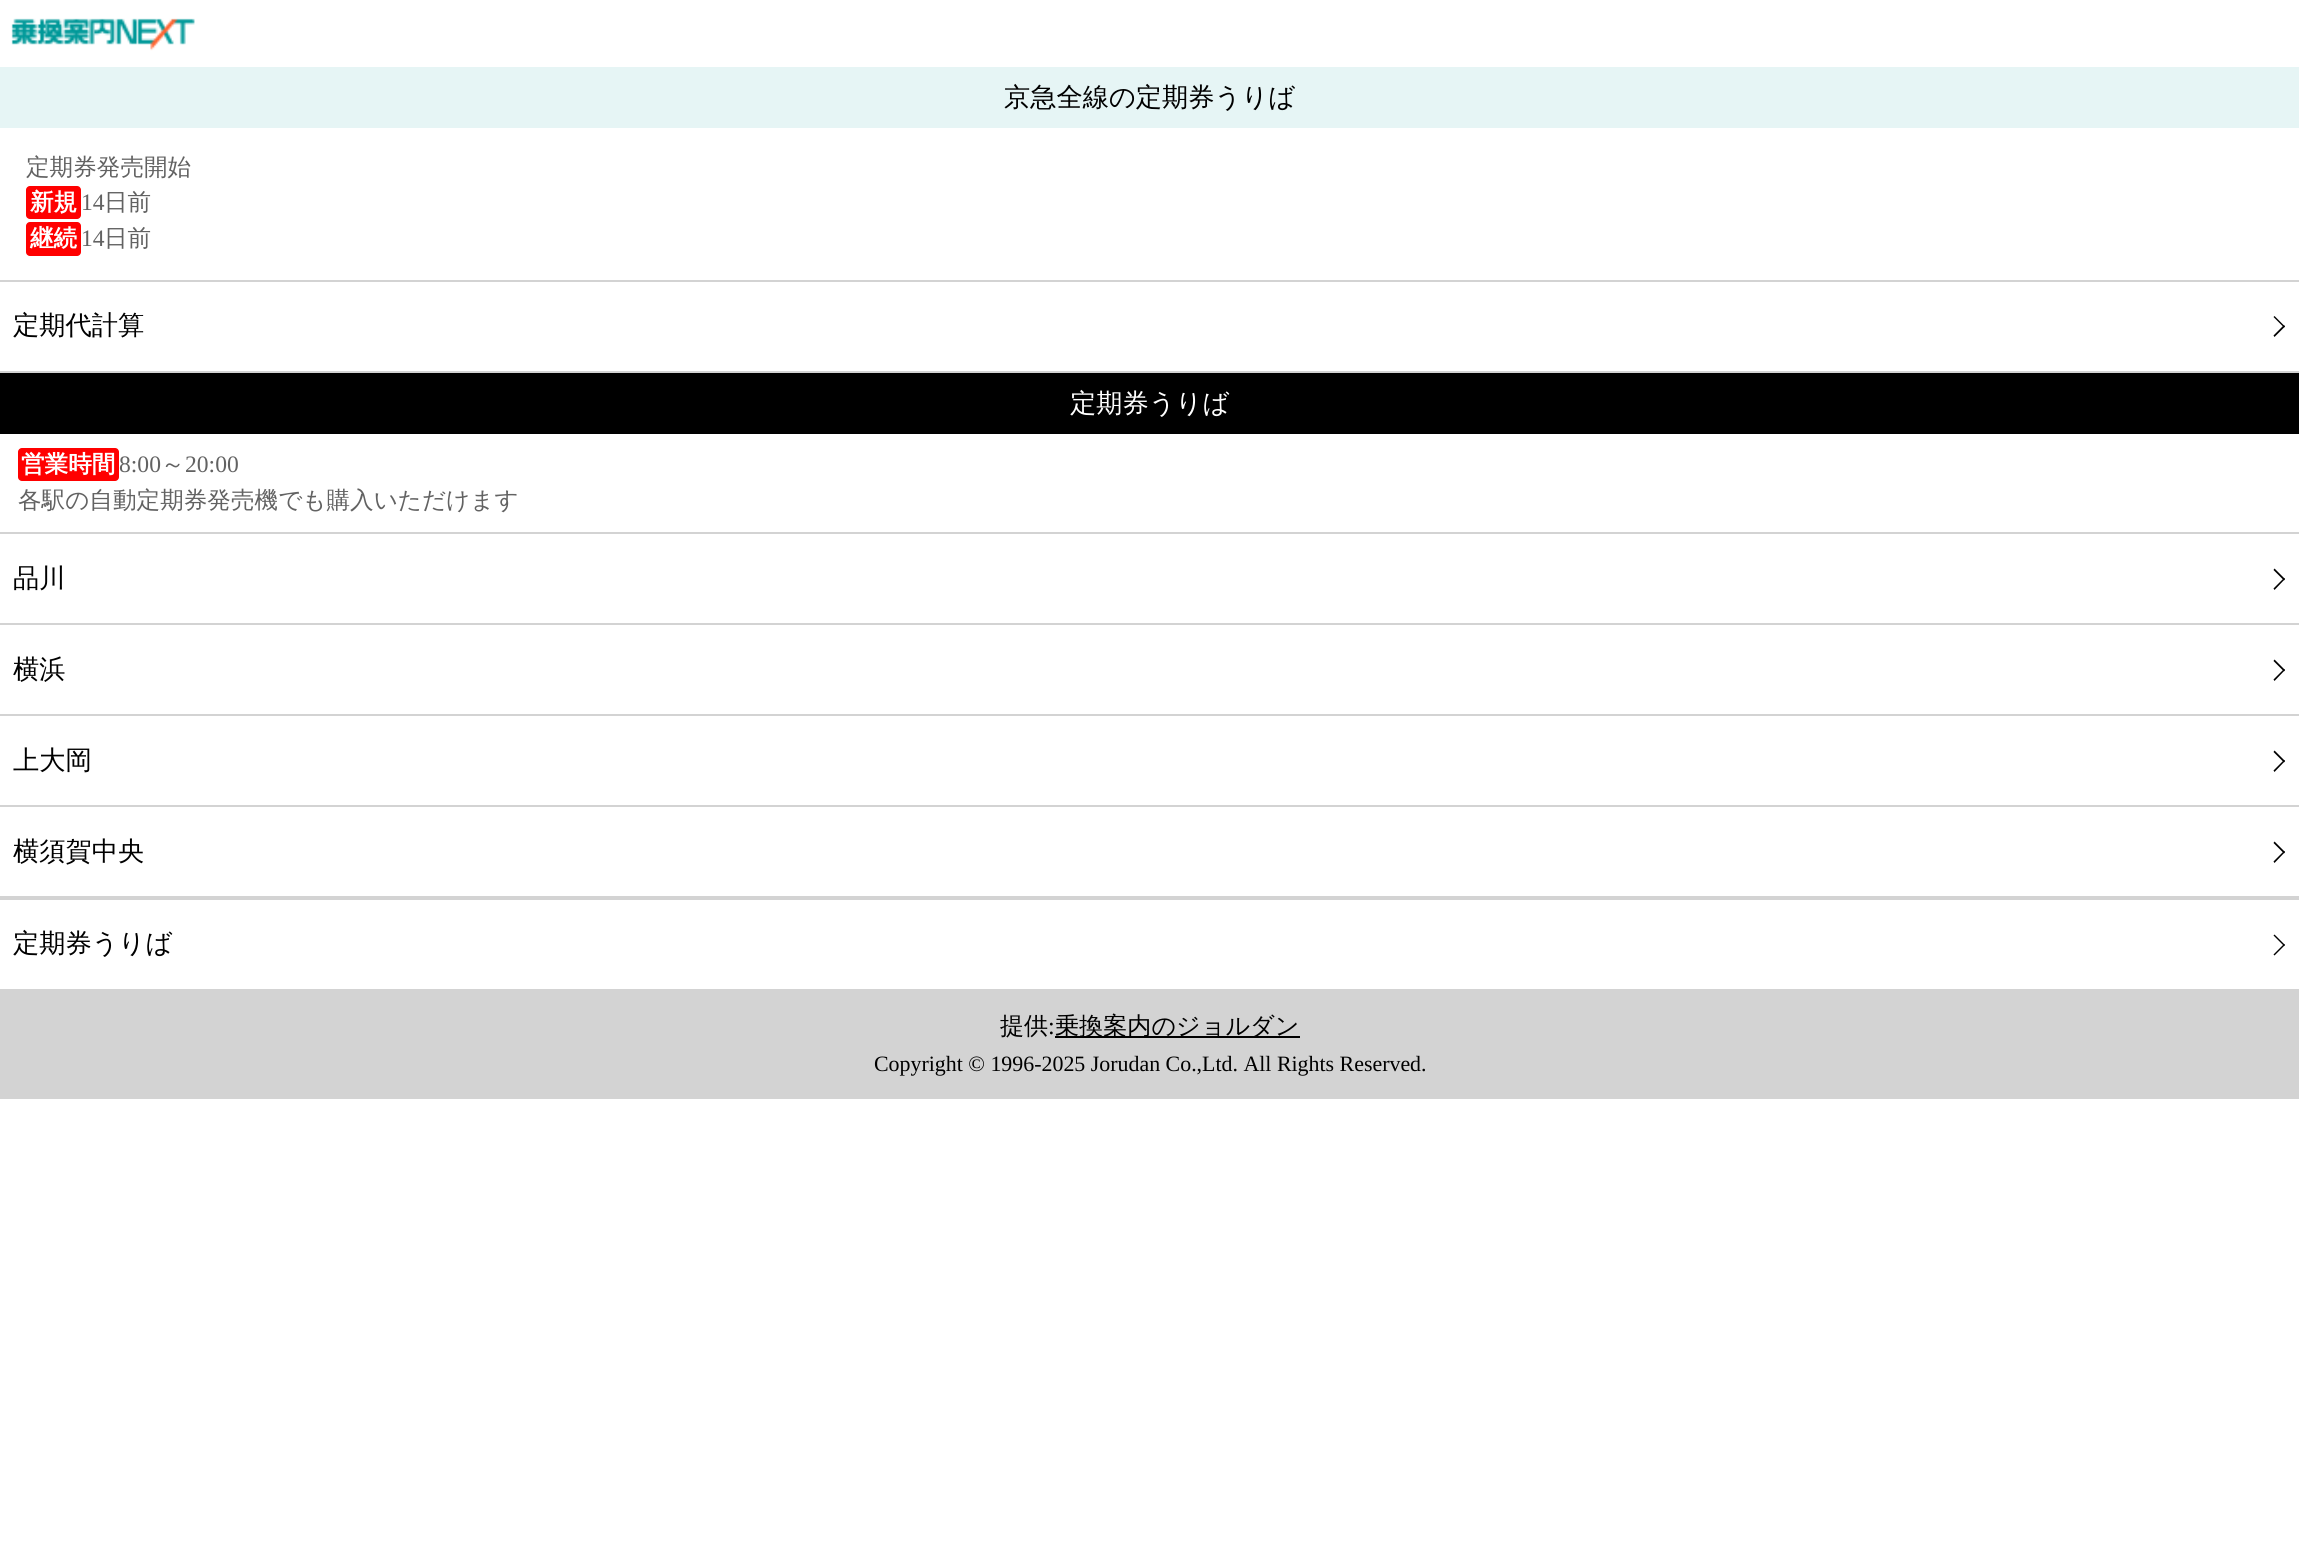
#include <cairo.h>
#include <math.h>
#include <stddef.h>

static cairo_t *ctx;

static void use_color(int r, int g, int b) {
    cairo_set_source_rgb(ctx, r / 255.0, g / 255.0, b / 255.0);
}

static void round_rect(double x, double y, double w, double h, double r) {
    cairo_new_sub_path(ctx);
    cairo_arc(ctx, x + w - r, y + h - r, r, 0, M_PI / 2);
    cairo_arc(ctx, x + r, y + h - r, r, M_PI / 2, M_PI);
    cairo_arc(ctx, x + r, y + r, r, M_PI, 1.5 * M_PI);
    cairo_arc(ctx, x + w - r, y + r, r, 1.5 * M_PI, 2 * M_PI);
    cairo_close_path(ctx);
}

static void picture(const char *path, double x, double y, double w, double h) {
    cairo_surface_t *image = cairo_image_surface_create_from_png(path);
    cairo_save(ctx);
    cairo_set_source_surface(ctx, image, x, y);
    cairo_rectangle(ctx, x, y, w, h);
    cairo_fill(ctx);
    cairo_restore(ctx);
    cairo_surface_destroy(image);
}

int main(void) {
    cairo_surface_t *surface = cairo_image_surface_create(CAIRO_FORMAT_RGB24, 2299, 1544);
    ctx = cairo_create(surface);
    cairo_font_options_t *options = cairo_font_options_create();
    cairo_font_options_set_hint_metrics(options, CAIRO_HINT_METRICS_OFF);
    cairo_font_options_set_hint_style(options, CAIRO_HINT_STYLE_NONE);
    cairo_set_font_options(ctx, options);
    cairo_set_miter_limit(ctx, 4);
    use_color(255, 255, 255);
    cairo_paint(ctx);
    picture("img1.png", 11, 18, 184, 33);
    use_color(230, 245, 245);
    cairo_rectangle(ctx, 0, 67, 2299, 61);
    cairo_fill(ctx);
    cairo_select_font_face(ctx, "WenQuanYi Zen Hei Medium", CAIRO_FONT_SLANT_NORMAL, CAIRO_FONT_WEIGHT_NORMAL);
    cairo_set_font_size(ctx, 26.25);
    use_color(0, 0, 0);
    cairo_move_to(ctx, 1004, 106);
    cairo_show_text(ctx, "京急全線の定期券うりば");
    cairo_set_font_size(ctx, 23.6);
    use_color(98, 98, 98);
    cairo_move_to(ctx, 26, 175);
    cairo_show_text(ctx, "定期券発売開始");
    use_color(255, 0, 0);
    round_rect(26, 186, 55, 33, 4);
    cairo_fill(ctx);
    cairo_select_font_face(ctx, "WenQuanYi Zen Hei", CAIRO_FONT_SLANT_NORMAL, CAIRO_FONT_WEIGHT_BOLD);
    use_color(255, 255, 255);
    cairo_move_to(ctx, 30, 210);
    cairo_show_text(ctx, "新規");
    cairo_select_font_face(ctx, "Liberation Serif", CAIRO_FONT_SLANT_NORMAL, CAIRO_FONT_WEIGHT_NORMAL);
    use_color(98, 98, 98);
    cairo_move_to(ctx, 81, 210);
    cairo_show_text(ctx, "14");
    cairo_select_font_face(ctx, "WenQuanYi Zen Hei Medium", CAIRO_FONT_SLANT_NORMAL, CAIRO_FONT_WEIGHT_NORMAL);
    cairo_move_to(ctx, 104, 210);
    cairo_show_text(ctx, "日前");
    use_color(255, 0, 0);
    round_rect(26, 222, 55, 34, 4);
    cairo_fill(ctx);
    cairo_select_font_face(ctx, "WenQuanYi Zen Hei", CAIRO_FONT_SLANT_NORMAL, CAIRO_FONT_WEIGHT_BOLD);
    use_color(255, 255, 255);
    cairo_move_to(ctx, 30, 246);
    cairo_show_text(ctx, "継続");
    cairo_select_font_face(ctx, "Liberation Serif", CAIRO_FONT_SLANT_NORMAL, CAIRO_FONT_WEIGHT_NORMAL);
    use_color(98, 98, 98);
    cairo_move_to(ctx, 81, 246);
    cairo_show_text(ctx, "14");
    cairo_select_font_face(ctx, "WenQuanYi Zen Hei Medium", CAIRO_FONT_SLANT_NORMAL, CAIRO_FONT_WEIGHT_NORMAL);
    cairo_move_to(ctx, 104, 246);
    cairo_show_text(ctx, "日前");
    use_color(211, 211, 211);
    cairo_rectangle(ctx, 0, 280, 2299, 2);
    cairo_fill(ctx);
    cairo_rectangle(ctx, 0, 371, 2299, 2);
    cairo_fill(ctx);
    cairo_set_font_size(ctx, 26.25);
    use_color(0, 0, 0);
    cairo_move_to(ctx, 13, 334);
    cairo_show_text(ctx, "定期代計算");
    cairo_new_path(ctx);
    cairo_move_to(ctx, 2274.5, 316);
    cairo_line_to(ctx, 2285, 326.5);
    cairo_line_to(ctx, 2284, 327.5);
    cairo_line_to(ctx, 2273.5, 317);
    cairo_close_path(ctx);
    cairo_fill(ctx);
    cairo_new_path(ctx);
    cairo_move_to(ctx, 2284, 325);
    cairo_line_to(ctx, 2285, 326.5);
    cairo_line_to(ctx, 2274.5, 337);
    cairo_line_to(ctx, 2273.5, 335.5);
    cairo_close_path(ctx);
    cairo_fill(ctx);
    cairo_rectangle(ctx, 0, 373, 2299, 61);
    cairo_fill(ctx);
    use_color(255, 255, 255);
    cairo_move_to(ctx, 1070, 412);
    cairo_show_text(ctx, "定期券うりば");
    use_color(255, 0, 0);
    round_rect(18, 448, 101, 33, 4);
    cairo_fill(ctx);
    cairo_select_font_face(ctx, "WenQuanYi Zen Hei", CAIRO_FONT_SLANT_NORMAL, CAIRO_FONT_WEIGHT_BOLD);
    cairo_set_font_size(ctx, 23.6);
    use_color(255, 255, 255);
    cairo_move_to(ctx, 21, 472);
    cairo_show_text(ctx, "営業時間");
    cairo_select_font_face(ctx, "Liberation Serif", CAIRO_FONT_SLANT_NORMAL, CAIRO_FONT_WEIGHT_NORMAL);
    use_color(98, 98, 98);
    cairo_move_to(ctx, 119, 472);
    cairo_show_text(ctx, "8:00");
    cairo_select_font_face(ctx, "WenQuanYi Zen Hei Medium", CAIRO_FONT_SLANT_NORMAL, CAIRO_FONT_WEIGHT_NORMAL);
    cairo_move_to(ctx, 161, 472);
    cairo_show_text(ctx, "～");
    cairo_select_font_face(ctx, "Liberation Serif", CAIRO_FONT_SLANT_NORMAL, CAIRO_FONT_WEIGHT_NORMAL);
    cairo_move_to(ctx, 185, 472);
    cairo_show_text(ctx, "20:00");
    cairo_select_font_face(ctx, "WenQuanYi Zen Hei Medium", CAIRO_FONT_SLANT_NORMAL, CAIRO_FONT_WEIGHT_NORMAL);
    cairo_move_to(ctx, 18, 508);
    cairo_show_text(ctx, "各駅の自動定期券発売機でも購入いただけます");
    use_color(211, 211, 211);
    cairo_rectangle(ctx, 0, 532, 2299, 2);
    cairo_fill(ctx);
    cairo_rectangle(ctx, 0, 623, 2299, 2);
    cairo_fill(ctx);
    cairo_set_font_size(ctx, 26.25);
    use_color(0, 0, 0);
    cairo_move_to(ctx, 13, 587);
    cairo_show_text(ctx, "品川");
    cairo_new_path(ctx);
    cairo_move_to(ctx, 2274.5, 568.5);
    cairo_line_to(ctx, 2285, 579);
    cairo_line_to(ctx, 2284, 580.5);
    cairo_line_to(ctx, 2273.5, 570);
    cairo_close_path(ctx);
    cairo_fill(ctx);
    cairo_new_path(ctx);
    cairo_move_to(ctx, 2284, 578);
    cairo_line_to(ctx, 2285, 579);
    cairo_line_to(ctx, 2274.5, 590);
    cairo_line_to(ctx, 2273.5, 588.5);
    cairo_close_path(ctx);
    cairo_fill(ctx);
    use_color(211, 211, 211);
    cairo_rectangle(ctx, 0, 714, 2299, 2);
    cairo_fill(ctx);
    use_color(0, 0, 0);
    cairo_move_to(ctx, 13, 678);
    cairo_show_text(ctx, "横浜");
    cairo_new_path(ctx);
    cairo_move_to(ctx, 2274.5, 659.5);
    cairo_line_to(ctx, 2285, 670);
    cairo_line_to(ctx, 2284, 671.5);
    cairo_line_to(ctx, 2273.5, 661);
    cairo_close_path(ctx);
    cairo_fill(ctx);
    cairo_new_path(ctx);
    cairo_move_to(ctx, 2284, 669);
    cairo_line_to(ctx, 2285, 670);
    cairo_line_to(ctx, 2274.5, 681);
    cairo_line_to(ctx, 2273.5, 679.5);
    cairo_close_path(ctx);
    cairo_fill(ctx);
    use_color(211, 211, 211);
    cairo_rectangle(ctx, 0, 805, 2299, 2);
    cairo_fill(ctx);
    use_color(0, 0, 0);
    cairo_move_to(ctx, 13, 769);
    cairo_show_text(ctx, "上大岡");
    cairo_new_path(ctx);
    cairo_move_to(ctx, 2274.5, 750.5);
    cairo_line_to(ctx, 2285, 761);
    cairo_line_to(ctx, 2284, 762.5);
    cairo_line_to(ctx, 2273.5, 752);
    cairo_close_path(ctx);
    cairo_fill(ctx);
    cairo_new_path(ctx);
    cairo_move_to(ctx, 2284, 760);
    cairo_line_to(ctx, 2285, 761);
    cairo_line_to(ctx, 2274.5, 772);
    cairo_line_to(ctx, 2273.5, 770.5);
    cairo_close_path(ctx);
    cairo_fill(ctx);
    use_color(211, 211, 211);
    cairo_rectangle(ctx, 0, 896, 2299, 4);
    cairo_fill(ctx);
    use_color(0, 0, 0);
    cairo_move_to(ctx, 13, 860);
    cairo_show_text(ctx, "横須賀中央");
    cairo_new_path(ctx);
    cairo_move_to(ctx, 2274.5, 841.5);
    cairo_line_to(ctx, 2285, 852);
    cairo_line_to(ctx, 2284, 853.5);
    cairo_line_to(ctx, 2273.5, 843);
    cairo_close_path(ctx);
    cairo_fill(ctx);
    cairo_new_path(ctx);
    cairo_move_to(ctx, 2284, 851);
    cairo_line_to(ctx, 2285, 852);
    cairo_line_to(ctx, 2274.5, 863);
    cairo_line_to(ctx, 2273.5, 861.5);
    cairo_close_path(ctx);
    cairo_fill(ctx);
    use_color(211, 211, 211);
    cairo_rectangle(ctx, 0, 989, 2299, 110);
    cairo_fill(ctx);
    use_color(0, 0, 0);
    cairo_move_to(ctx, 13, 952);
    cairo_show_text(ctx, "定期券うりば");
    cairo_new_path(ctx);
    cairo_move_to(ctx, 2274.5, 934.5);
    cairo_line_to(ctx, 2285, 945);
    cairo_line_to(ctx, 2284, 946);
    cairo_line_to(ctx, 2273.5, 935.5);
    cairo_close_path(ctx);
    cairo_fill(ctx);
    cairo_new_path(ctx);
    cairo_move_to(ctx, 2284, 944);
    cairo_line_to(ctx, 2285, 945);
    cairo_line_to(ctx, 2274.5, 955.5);
    cairo_line_to(ctx, 2273.5, 954.5);
    cairo_close_path(ctx);
    cairo_fill(ctx);
    cairo_set_font_size(ctx, 24.1);
    cairo_move_to(ctx, 1000, 1034);
    cairo_show_text(ctx, "提供");
    cairo_select_font_face(ctx, "Liberation Serif", CAIRO_FONT_SLANT_NORMAL, CAIRO_FONT_WEIGHT_NORMAL);
    cairo_move_to(ctx, 1048, 1034);
    cairo_show_text(ctx, ":");
    cairo_rectangle(ctx, 1055, 1036, 245, 2);
    cairo_fill(ctx);
    cairo_select_font_face(ctx, "WenQuanYi Zen Hei Medium", CAIRO_FONT_SLANT_NORMAL, CAIRO_FONT_WEIGHT_NORMAL);
    cairo_move_to(ctx, 1055, 1034);
    cairo_show_text(ctx, "乗換案内のジョルダン");
    cairo_select_font_face(ctx, "Liberation Serif", CAIRO_FONT_SLANT_NORMAL, CAIRO_FONT_WEIGHT_NORMAL);
    cairo_set_font_size(ctx, 21.9);
    cairo_move_to(ctx, 874, 1071);
    cairo_show_text(ctx, "Copyright © 1996-2025 Jorudan Co.,Ltd. All Rights Reserved.");
    cairo_surface_write_to_png(surface, "result.png");
    cairo_font_options_destroy(options);
    cairo_destroy(ctx);
    cairo_surface_destroy(surface);
    return 0;
}
